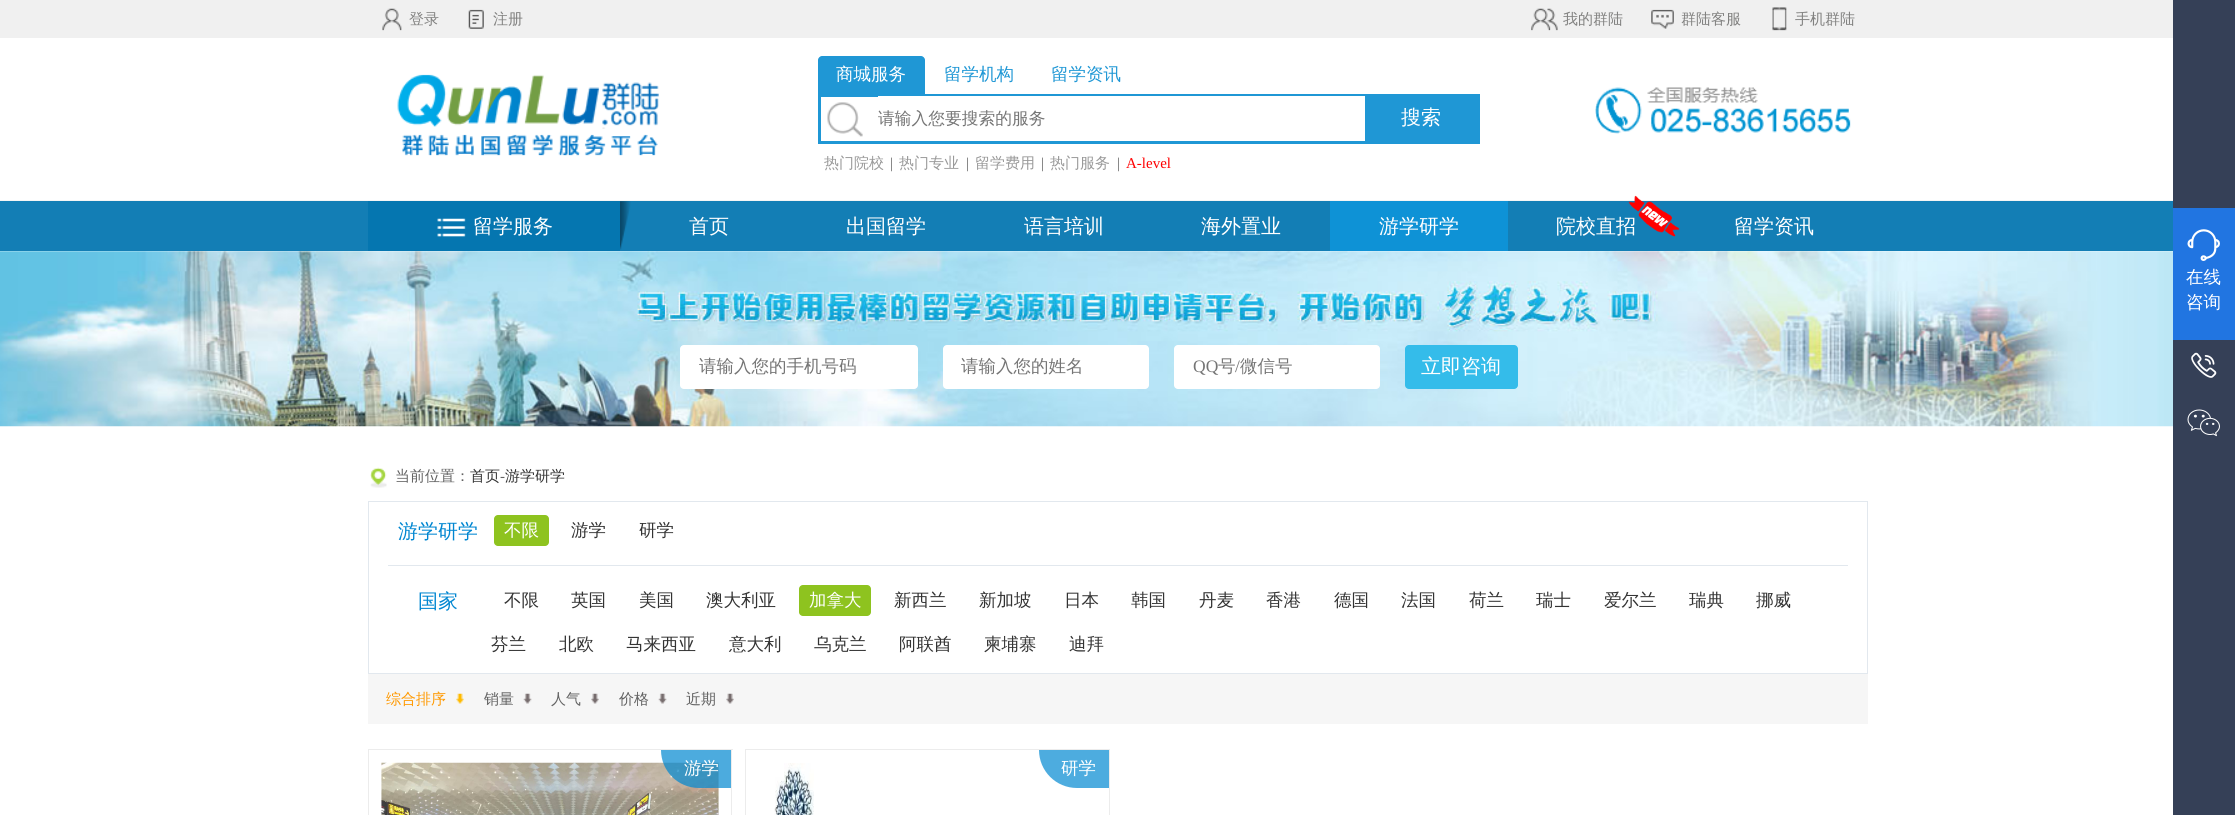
#include <cairo.h>
#include <math.h>
#include <stddef.h>

static cairo_t *ctx;

static void use_color(int r, int g, int b) {
    cairo_set_source_rgb(ctx, r / 255.0, g / 255.0, b / 255.0);
}

static void round_rect(double x, double y, double w, double h, double r) {
    cairo_new_sub_path(ctx);
    cairo_arc(ctx, x + w - r, y + h - r, r, 0, M_PI / 2);
    cairo_arc(ctx, x + r, y + h - r, r, M_PI / 2, M_PI);
    cairo_arc(ctx, x + r, y + r, r, M_PI, 1.5 * M_PI);
    cairo_arc(ctx, x + w - r, y + r, r, 1.5 * M_PI, 2 * M_PI);
    cairo_close_path(ctx);
}

static void picture(const char *path, double x, double y, double w, double h) {
    cairo_surface_t *image = cairo_image_surface_create_from_png(path);
    cairo_save(ctx);
    cairo_set_source_surface(ctx, image, x, y);
    cairo_rectangle(ctx, x, y, w, h);
    cairo_fill(ctx);
    cairo_restore(ctx);
    cairo_surface_destroy(image);
}

int main(void) {
    cairo_surface_t *surface = cairo_image_surface_create(CAIRO_FORMAT_RGB24, 2235, 815);
    ctx = cairo_create(surface);
    cairo_font_options_t *options = cairo_font_options_create();
    cairo_font_options_set_hint_metrics(options, CAIRO_HINT_METRICS_OFF);
    cairo_font_options_set_hint_style(options, CAIRO_HINT_STYLE_NONE);
    cairo_set_font_options(ctx, options);
    cairo_set_miter_limit(ctx, 4);
    use_color(255, 255, 255);
    cairo_paint(ctx);
    use_color(240, 240, 240);
    cairo_rectangle(ctx, 0, 0, 2173, 38);
    cairo_fill(ctx);
    picture("img1.png", 382, 8, 20, 23);
    cairo_select_font_face(ctx, "WenQuanYi Zen Hei Medium", CAIRO_FONT_SLANT_NORMAL, CAIRO_FONT_WEIGHT_NORMAL);
    cairo_set_font_size(ctx, 15);
    use_color(129, 129, 128);
    cairo_move_to(ctx, 409, 24);
    cairo_show_text(ctx, "登录");
    picture("img2.png", 468, 9, 16, 20);
    cairo_move_to(ctx, 493, 24);
    cairo_show_text(ctx, "注册");
    picture("img3.png", 1531, 8, 27, 23);
    cairo_move_to(ctx, 1563, 24);
    cairo_show_text(ctx, "我的群陆");
    picture("img4.png", 1651, 9, 23, 20);
    cairo_move_to(ctx, 1681, 24);
    cairo_show_text(ctx, "群陆客服");
    picture("img5.png", 1772, 7, 15, 24);
    cairo_move_to(ctx, 1795, 24);
    cairo_show_text(ctx, "手机群陆");
    use_color(245, 245, 245);
    cairo_rectangle(ctx, 0, 200, 2173, 1);
    cairo_fill(ctx);
    picture("img6.png", 397, 74, 262, 82);
    use_color(31, 151, 213);
    cairo_new_path(ctx);
    cairo_move_to(ctx, 822, 56);
    cairo_line_to(ctx, 921, 56);
    cairo_curve_to(ctx, 923, 56, 925, 58, 925, 60);
    cairo_line_to(ctx, 925, 94);
    cairo_line_to(ctx, 818, 94);
    cairo_line_to(ctx, 818, 60);
    cairo_curve_to(ctx, 818, 58, 820, 56, 822, 56);
    cairo_close_path(ctx);
    cairo_fill(ctx);
    cairo_set_font_size(ctx, 17.5);
    use_color(255, 255, 255);
    cairo_move_to(ctx, 836, 80);
    cairo_show_text(ctx, "商城服务");
    use_color(31, 151, 213);
    cairo_move_to(ctx, 944, 80);
    cairo_show_text(ctx, "留学机构");
    cairo_move_to(ctx, 1051, 80);
    cairo_show_text(ctx, "留学资讯");
    picture("img7.png", 827, 102, 36, 35);
    cairo_rectangle(ctx, 819.5, 95.5, 659, 47);
    cairo_set_line_width(ctx, 3);
    cairo_stroke(ctx);
    use_color(255, 255, 255);
    cairo_rectangle(ctx, 878, 96, 487, 1);
    cairo_fill(ctx);
    cairo_set_font_size(ctx, 16.75);
    use_color(117, 117, 117);
    cairo_move_to(ctx, 878, 124);
    cairo_show_text(ctx, "请输入您要搜索的服务");
    use_color(31, 151, 213);
    cairo_rectangle(ctx, 1365, 97, 112, 44);
    cairo_fill(ctx);
    cairo_set_font_size(ctx, 20);
    use_color(255, 255, 255);
    cairo_move_to(ctx, 1401, 124);
    cairo_show_text(ctx, "搜索");
    cairo_set_font_size(ctx, 15);
    use_color(153, 153, 153);
    cairo_move_to(ctx, 824, 168);
    cairo_show_text(ctx, "热门院校");
    cairo_select_font_face(ctx, "Liberation Serif", CAIRO_FONT_SLANT_NORMAL, CAIRO_FONT_WEIGHT_NORMAL);
    use_color(98, 98, 98);
    cairo_move_to(ctx, 890, 168);
    cairo_show_text(ctx, "|");
    cairo_select_font_face(ctx, "WenQuanYi Zen Hei Medium", CAIRO_FONT_SLANT_NORMAL, CAIRO_FONT_WEIGHT_NORMAL);
    use_color(153, 153, 153);
    cairo_move_to(ctx, 899, 168);
    cairo_show_text(ctx, "热门专业");
    cairo_select_font_face(ctx, "Liberation Serif", CAIRO_FONT_SLANT_NORMAL, CAIRO_FONT_WEIGHT_NORMAL);
    use_color(98, 98, 98);
    cairo_move_to(ctx, 966, 168);
    cairo_show_text(ctx, "|");
    cairo_select_font_face(ctx, "WenQuanYi Zen Hei Medium", CAIRO_FONT_SLANT_NORMAL, CAIRO_FONT_WEIGHT_NORMAL);
    use_color(153, 153, 153);
    cairo_move_to(ctx, 975, 168);
    cairo_show_text(ctx, "留学费用");
    cairo_select_font_face(ctx, "Liberation Serif", CAIRO_FONT_SLANT_NORMAL, CAIRO_FONT_WEIGHT_NORMAL);
    use_color(98, 98, 98);
    cairo_move_to(ctx, 1041, 168);
    cairo_show_text(ctx, "|");
    cairo_select_font_face(ctx, "WenQuanYi Zen Hei Medium", CAIRO_FONT_SLANT_NORMAL, CAIRO_FONT_WEIGHT_NORMAL);
    use_color(153, 153, 153);
    cairo_move_to(ctx, 1050, 168);
    cairo_show_text(ctx, "热门服务");
    cairo_select_font_face(ctx, "Liberation Serif", CAIRO_FONT_SLANT_NORMAL, CAIRO_FONT_WEIGHT_NORMAL);
    use_color(98, 98, 98);
    cairo_move_to(ctx, 1117, 168);
    cairo_show_text(ctx, "|");
    use_color(255, 0, 0);
    cairo_move_to(ctx, 1126, 168);
    cairo_show_text(ctx, "A-level");
    picture("img8.png", 1595, 87, 256, 47);
    use_color(19, 126, 181);
    cairo_rectangle(ctx, 0, 201, 2173, 50);
    cairo_fill(ctx);
    use_color(5, 118, 176);
    cairo_rectangle(ctx, 368, 201, 252, 50);
    cairo_fill(ctx);
    picture("img9.png", 437, 218, 29, 19);
    cairo_select_font_face(ctx, "WenQuanYi Zen Hei Medium", CAIRO_FONT_SLANT_NORMAL, CAIRO_FONT_WEIGHT_NORMAL);
    cairo_set_font_size(ctx, 20);
    use_color(255, 255, 255);
    cairo_move_to(ctx, 473, 233);
    cairo_show_text(ctx, "留学服务");
    picture("img10.png", 620, 201, 11, 49);
    cairo_move_to(ctx, 689, 233);
    cairo_show_text(ctx, "首页");
    cairo_move_to(ctx, 846, 233);
    cairo_show_text(ctx, "出国留学");
    cairo_move_to(ctx, 1024, 233);
    cairo_show_text(ctx, "语言培训");
    cairo_move_to(ctx, 1201, 233);
    cairo_show_text(ctx, "海外置业");
    use_color(14, 146, 214);
    cairo_rectangle(ctx, 1330, 201, 178, 50);
    cairo_fill(ctx);
    use_color(255, 255, 255);
    cairo_move_to(ctx, 1379, 233);
    cairo_show_text(ctx, "游学研学");
    cairo_move_to(ctx, 1556, 233);
    cairo_show_text(ctx, "院校直招");
    picture("img11.png", 1628, 195, 52, 42);
    cairo_move_to(ctx, 1734, 233);
    cairo_show_text(ctx, "留学资讯");
    use_color(53, 64, 87);
    cairo_rectangle(ctx, 2173, 0, 62, 815);
    cairo_fill(ctx);
    use_color(33, 117, 225);
    cairo_rectangle(ctx, 2173, 208, 62, 132);
    cairo_fill(ctx);
    picture("img12.png", 2187, 229, 33, 32);
    cairo_set_font_size(ctx, 17.5);
    use_color(255, 255, 255);
    cairo_move_to(ctx, 2186, 283);
    cairo_show_text(ctx, "在线");
    cairo_move_to(ctx, 2186, 308);
    cairo_show_text(ctx, "咨询");
    picture("img13.png", 2191, 352, 26, 26);
    picture("img14.png", 2187, 409, 33, 28);
    picture("img15.png", 0, 251, 2173, 176);
    round_rect(680, 345, 238, 44, 4);
    cairo_fill(ctx);
    use_color(117, 117, 117);
    cairo_move_to(ctx, 699, 372);
    cairo_show_text(ctx, "请输入您的手机号码");
    use_color(255, 255, 255);
    round_rect(943, 345, 206, 44, 4);
    cairo_fill(ctx);
    use_color(117, 117, 117);
    cairo_move_to(ctx, 961, 372);
    cairo_show_text(ctx, "请输入您的姓名");
    use_color(255, 255, 255);
    round_rect(1174, 345, 206, 44, 4);
    cairo_fill(ctx);
    cairo_select_font_face(ctx, "Liberation Serif", CAIRO_FONT_SLANT_NORMAL, CAIRO_FONT_WEIGHT_NORMAL);
    use_color(117, 117, 117);
    cairo_move_to(ctx, 1193, 372);
    cairo_show_text(ctx, "QQ");
    cairo_select_font_face(ctx, "WenQuanYi Zen Hei Medium", CAIRO_FONT_SLANT_NORMAL, CAIRO_FONT_WEIGHT_NORMAL);
    cairo_move_to(ctx, 1218, 372);
    cairo_show_text(ctx, "号");
    cairo_select_font_face(ctx, "Liberation Serif", CAIRO_FONT_SLANT_NORMAL, CAIRO_FONT_WEIGHT_NORMAL);
    cairo_move_to(ctx, 1235, 372);
    cairo_show_text(ctx, "/");
    cairo_select_font_face(ctx, "WenQuanYi Zen Hei Medium", CAIRO_FONT_SLANT_NORMAL, CAIRO_FONT_WEIGHT_NORMAL);
    cairo_move_to(ctx, 1240, 372);
    cairo_show_text(ctx, "微信号");
    use_color(52, 188, 234);
    round_rect(1405, 345, 113, 44, 4);
    cairo_fill(ctx);
    cairo_set_font_size(ctx, 20);
    use_color(255, 255, 255);
    cairo_move_to(ctx, 1421, 373);
    cairo_show_text(ctx, "立即咨询");
    picture("img16.png", 370, 467, 17, 21);
    cairo_set_font_size(ctx, 15);
    use_color(98, 98, 98);
    cairo_move_to(ctx, 395, 481);
    cairo_show_text(ctx, "当前位置：");
    use_color(51, 51, 51);
    cairo_move_to(ctx, 470, 481);
    cairo_show_text(ctx, "首页");
    cairo_select_font_face(ctx, "Liberation Serif", CAIRO_FONT_SLANT_NORMAL, CAIRO_FONT_WEIGHT_NORMAL);
    use_color(98, 98, 98);
    cairo_move_to(ctx, 500, 481);
    cairo_show_text(ctx, "-");
    cairo_select_font_face(ctx, "WenQuanYi Zen Hei Medium", CAIRO_FONT_SLANT_NORMAL, CAIRO_FONT_WEIGHT_NORMAL);
    use_color(51, 51, 51);
    cairo_move_to(ctx, 505, 481);
    cairo_show_text(ctx, "游学研学");
    cairo_rectangle(ctx, 368.5, 501.5, 1499, 172);
    use_color(226, 232, 238);
    cairo_set_line_width(ctx, 1);
    cairo_stroke(ctx);
    cairo_rectangle(ctx, 388, 565, 1460, 1);
    cairo_fill(ctx);
    cairo_set_font_size(ctx, 20);
    use_color(0, 134, 209);
    cairo_move_to(ctx, 398, 538);
    cairo_show_text(ctx, "游学研学");
    use_color(142, 195, 31);
    round_rect(494, 515, 55, 31, 4);
    cairo_fill(ctx);
    cairo_set_font_size(ctx, 17.5);
    use_color(255, 255, 255);
    cairo_move_to(ctx, 504, 536);
    cairo_show_text(ctx, "不限");
    use_color(51, 51, 51);
    cairo_move_to(ctx, 571, 536);
    cairo_show_text(ctx, "游学");
    cairo_move_to(ctx, 639, 536);
    cairo_show_text(ctx, "研学");
    cairo_set_font_size(ctx, 20);
    use_color(0, 134, 209);
    cairo_move_to(ctx, 418, 608);
    cairo_show_text(ctx, "国家");
    cairo_set_font_size(ctx, 17.5);
    use_color(51, 51, 51);
    cairo_move_to(ctx, 504, 606);
    cairo_show_text(ctx, "不限");
    cairo_move_to(ctx, 571, 606);
    cairo_show_text(ctx, "英国");
    cairo_move_to(ctx, 639, 606);
    cairo_show_text(ctx, "美国");
    cairo_move_to(ctx, 706, 606);
    cairo_show_text(ctx, "澳大利亚");
    use_color(142, 195, 31);
    round_rect(799, 585, 72, 31, 4);
    cairo_fill(ctx);
    use_color(255, 255, 255);
    cairo_move_to(ctx, 809, 606);
    cairo_show_text(ctx, "加拿大");
    use_color(51, 51, 51);
    cairo_move_to(ctx, 894, 606);
    cairo_show_text(ctx, "新西兰");
    cairo_move_to(ctx, 979, 606);
    cairo_show_text(ctx, "新加坡");
    cairo_move_to(ctx, 1064, 606);
    cairo_show_text(ctx, "日本");
    cairo_move_to(ctx, 1131, 606);
    cairo_show_text(ctx, "韩国");
    cairo_move_to(ctx, 1199, 606);
    cairo_show_text(ctx, "丹麦");
    cairo_move_to(ctx, 1266, 606);
    cairo_show_text(ctx, "香港");
    cairo_move_to(ctx, 1334, 606);
    cairo_show_text(ctx, "德国");
    cairo_move_to(ctx, 1401, 606);
    cairo_show_text(ctx, "法国");
    cairo_move_to(ctx, 1469, 606);
    cairo_show_text(ctx, "荷兰");
    cairo_move_to(ctx, 1536, 606);
    cairo_show_text(ctx, "瑞士");
    cairo_move_to(ctx, 1604, 606);
    cairo_show_text(ctx, "爱尔兰");
    cairo_move_to(ctx, 1689, 606);
    cairo_show_text(ctx, "瑞典");
    cairo_move_to(ctx, 1756, 606);
    cairo_show_text(ctx, "挪威");
    cairo_move_to(ctx, 491, 650);
    cairo_show_text(ctx, "芬兰");
    cairo_move_to(ctx, 559, 650);
    cairo_show_text(ctx, "北欧");
    cairo_move_to(ctx, 626, 650);
    cairo_show_text(ctx, "马来西亚");
    cairo_move_to(ctx, 729, 650);
    cairo_show_text(ctx, "意大利");
    cairo_move_to(ctx, 814, 650);
    cairo_show_text(ctx, "乌克兰");
    cairo_move_to(ctx, 899, 650);
    cairo_show_text(ctx, "阿联酋");
    cairo_move_to(ctx, 984, 650);
    cairo_show_text(ctx, "柬埔寨");
    cairo_move_to(ctx, 1069, 650);
    cairo_show_text(ctx, "迪拜");
    use_color(246, 246, 246);
    cairo_rectangle(ctx, 368, 674, 1500, 50);
    cairo_fill(ctx);
    picture("img17.png", 456, 693, 8, 11);
    cairo_set_font_size(ctx, 15);
    use_color(255, 153, 0);
    cairo_move_to(ctx, 386, 704);
    cairo_show_text(ctx, "综合排序");
    picture("img18.png", 523, 693, 9, 11);
    use_color(98, 98, 98);
    cairo_move_to(ctx, 484, 704);
    cairo_show_text(ctx, "销量");
    picture("img19.png", 591, 693, 8, 11);
    cairo_move_to(ctx, 551, 704);
    cairo_show_text(ctx, "人气");
    picture("img18.png", 658, 693, 9, 11);
    cairo_move_to(ctx, 619, 704);
    cairo_show_text(ctx, "价格");
    picture("img20.png", 726, 693, 8, 11);
    cairo_move_to(ctx, 686, 704);
    cairo_show_text(ctx, "近期");
    use_color(236, 236, 236);
    cairo_rectangle(ctx, 368, 749, 365, 1);
    cairo_fill(ctx);
    cairo_new_path(ctx);
    cairo_move_to(ctx, 732, 749);
    cairo_line_to(ctx, 732, 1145);
    cairo_line_to(ctx, 731, 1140);
    cairo_line_to(ctx, 731, 750);
    cairo_close_path(ctx);
    cairo_fill(ctx);
    cairo_new_path(ctx);
    cairo_move_to(ctx, 368, 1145);
    cairo_line_to(ctx, 368, 749);
    cairo_line_to(ctx, 369, 750);
    cairo_line_to(ctx, 369, 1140);
    cairo_close_path(ctx);
    cairo_fill(ctx);
    picture("img21.png", 381, 762, 338, 53);
    cairo_set_source_rgba(ctx, 0, 0.533, 0.82, 0.7);
    cairo_new_path(ctx);
    cairo_move_to(ctx, 661, 750);
    cairo_line_to(ctx, 731, 750);
    cairo_line_to(ctx, 731, 788);
    cairo_line_to(ctx, 699, 788);
    cairo_curve_to(ctx, 678, 788, 661, 771, 661, 750);
    cairo_close_path(ctx);
    cairo_fill(ctx);
    cairo_set_font_size(ctx, 17.5);
    use_color(255, 255, 255);
    cairo_move_to(ctx, 684, 774);
    cairo_show_text(ctx, "游学");
    use_color(236, 236, 236);
    cairo_rectangle(ctx, 745, 749, 365, 1);
    cairo_fill(ctx);
    cairo_new_path(ctx);
    cairo_move_to(ctx, 1110, 749);
    cairo_line_to(ctx, 1110, 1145);
    cairo_line_to(ctx, 1109, 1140);
    cairo_line_to(ctx, 1109, 750);
    cairo_close_path(ctx);
    cairo_fill(ctx);
    cairo_new_path(ctx);
    cairo_move_to(ctx, 745, 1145);
    cairo_line_to(ctx, 745, 749);
    cairo_line_to(ctx, 746, 750);
    cairo_line_to(ctx, 746, 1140);
    cairo_close_path(ctx);
    cairo_fill(ctx);
    picture("img22.png", 774, 763, 40, 52);
    use_color(77, 172, 223);
    cairo_new_path(ctx);
    cairo_move_to(ctx, 1039, 750);
    cairo_line_to(ctx, 1109, 750);
    cairo_line_to(ctx, 1109, 788);
    cairo_line_to(ctx, 1077, 788);
    cairo_curve_to(ctx, 1056, 788, 1039, 771, 1039, 750);
    cairo_close_path(ctx);
    cairo_fill(ctx);
    use_color(255, 255, 255);
    cairo_move_to(ctx, 1061, 774);
    cairo_show_text(ctx, "研学");
    cairo_surface_write_to_png(surface, "result.png");
    cairo_font_options_destroy(options);
    cairo_destroy(ctx);
    cairo_surface_destroy(surface);
    return 0;
}
